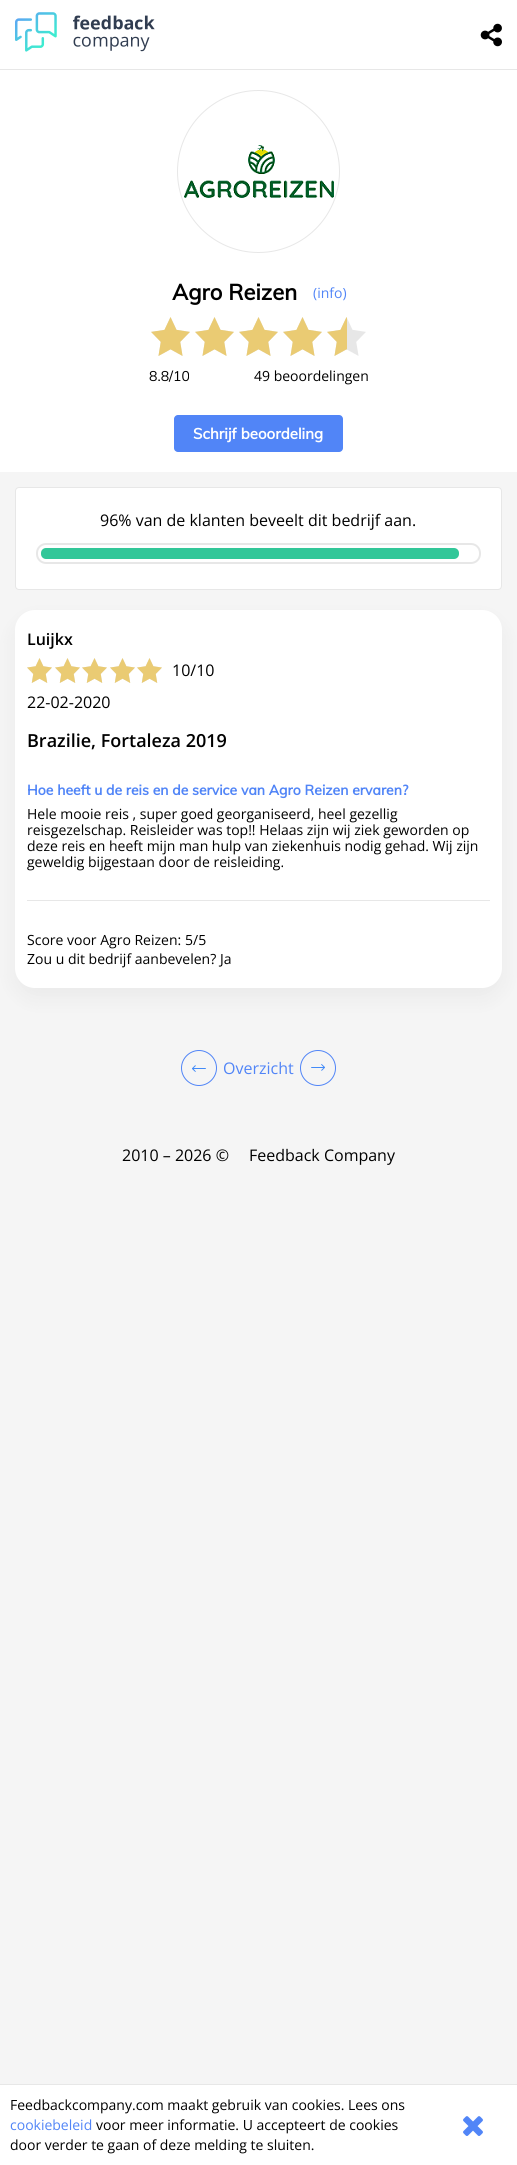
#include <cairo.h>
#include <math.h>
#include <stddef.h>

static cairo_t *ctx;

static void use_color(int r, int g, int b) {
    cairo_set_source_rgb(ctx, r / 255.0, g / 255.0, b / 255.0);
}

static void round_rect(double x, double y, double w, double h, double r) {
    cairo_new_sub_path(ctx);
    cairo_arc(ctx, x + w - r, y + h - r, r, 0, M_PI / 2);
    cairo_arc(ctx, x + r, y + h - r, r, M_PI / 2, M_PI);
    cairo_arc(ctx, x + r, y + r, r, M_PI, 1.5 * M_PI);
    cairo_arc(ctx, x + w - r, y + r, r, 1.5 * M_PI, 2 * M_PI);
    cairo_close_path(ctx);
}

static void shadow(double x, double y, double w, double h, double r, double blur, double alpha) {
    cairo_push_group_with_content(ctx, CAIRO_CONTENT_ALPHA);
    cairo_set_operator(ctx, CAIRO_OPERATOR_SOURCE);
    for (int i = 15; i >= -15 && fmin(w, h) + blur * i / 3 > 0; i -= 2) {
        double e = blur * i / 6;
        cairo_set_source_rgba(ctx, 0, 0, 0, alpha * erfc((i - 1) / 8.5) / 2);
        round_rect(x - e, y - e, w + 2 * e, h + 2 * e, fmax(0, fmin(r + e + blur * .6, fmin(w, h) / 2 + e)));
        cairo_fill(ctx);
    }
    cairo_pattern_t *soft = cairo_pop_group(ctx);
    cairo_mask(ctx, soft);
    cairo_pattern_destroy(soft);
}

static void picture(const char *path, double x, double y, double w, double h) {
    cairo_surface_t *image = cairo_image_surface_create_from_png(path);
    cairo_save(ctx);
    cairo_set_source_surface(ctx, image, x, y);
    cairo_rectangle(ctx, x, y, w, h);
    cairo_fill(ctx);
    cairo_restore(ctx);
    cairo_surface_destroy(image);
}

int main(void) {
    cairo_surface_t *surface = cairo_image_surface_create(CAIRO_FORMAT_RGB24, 517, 2165);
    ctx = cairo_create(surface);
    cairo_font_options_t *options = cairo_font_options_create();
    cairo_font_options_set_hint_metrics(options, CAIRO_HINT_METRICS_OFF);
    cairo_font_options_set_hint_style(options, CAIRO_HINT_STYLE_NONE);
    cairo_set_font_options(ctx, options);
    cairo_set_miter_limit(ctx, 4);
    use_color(245, 245, 245);
    cairo_paint(ctx);
    use_color(255, 255, 255);
    cairo_rectangle(ctx, 0, 0, 517, 69);
    cairo_fill(ctx);
    use_color(231, 231, 231);
    cairo_rectangle(ctx, 0, 69, 517, 1);
    cairo_fill(ctx);
    picture("img1.png", 15, 12, 140, 40);
    picture("img2.png", 480, 23, 22, 24);
    use_color(255, 255, 255);
    cairo_rectangle(ctx, 0, 70, 517, 402);
    cairo_fill(ctx);
    cairo_arc(ctx, 258.5, 171.5, 81, 0, 2 * M_PI);
    use_color(231, 231, 231);
    cairo_set_line_width(ctx, 1);
    cairo_stroke(ctx);
    picture("img3.png", 184, 145, 150, 53);
    cairo_select_font_face(ctx, "Muli", CAIRO_FONT_SLANT_NORMAL, CAIRO_FONT_WEIGHT_BOLD);
    cairo_set_font_size(ctx, 22);
    use_color(0, 0, 0);
    cairo_move_to(ctx, 172, 300);
    cairo_show_text(ctx, "Agro Reizen");
    cairo_select_font_face(ctx, "Open Sans", CAIRO_FONT_SLANT_NORMAL, CAIRO_FONT_WEIGHT_NORMAL);
    cairo_set_font_size(ctx, 14);
    use_color(81, 133, 247);
    cairo_move_to(ctx, 313, 298);
    cairo_show_text(ctx, "(info)");
    picture("img4.png", 151, 317, 39, 39);
    picture("img5.png", 151, 317, 39, 39);
    picture("img4.png", 195, 317, 39, 39);
    picture("img5.png", 195, 317, 39, 39);
    picture("img4.png", 239, 317, 39, 39);
    picture("img5.png", 239, 317, 39, 39);
    picture("img4.png", 283, 317, 39, 39);
    picture("img5.png", 283, 317, 39, 39);
    picture("img4.png", 327, 317, 39, 39);
    picture("img6.png", 327, 317, 20, 39);
    cairo_select_font_face(ctx, "Muli", CAIRO_FONT_SLANT_NORMAL, CAIRO_FONT_WEIGHT_NORMAL);
    use_color(0, 0, 0);
    cairo_move_to(ctx, 149, 381);
    cairo_show_text(ctx, "8.8/10");
    cairo_select_font_face(ctx, "Open Sans", CAIRO_FONT_SLANT_NORMAL, CAIRO_FONT_WEIGHT_NORMAL);
    cairo_move_to(ctx, 254, 381);
    cairo_show_text(ctx, "49 beoordelingen");
    use_color(81, 133, 247);
    round_rect(174, 415, 169, 37, 4);
    cairo_fill(ctx);
    cairo_select_font_face(ctx, "Muli", CAIRO_FONT_SLANT_NORMAL, CAIRO_FONT_WEIGHT_BOLD);
    cairo_set_font_size(ctx, 15);
    use_color(255, 255, 255);
    cairo_move_to(ctx, 193, 439);
    cairo_show_text(ctx, "Schrijf beoordeling");
    round_rect(15.5, 487.5, 486, 102, 3.5);
    cairo_fill_preserve(ctx);
    use_color(231, 231, 231);
    cairo_stroke(ctx);
    cairo_select_font_face(ctx, "Open Sans", CAIRO_FONT_SLANT_NORMAL, CAIRO_FONT_WEIGHT_NORMAL);
    cairo_set_font_size(ctx, 16);
    use_color(0, 0, 0);
    cairo_move_to(ctx, 100, 526);
    cairo_show_text(ctx, "96% van de klanten beveelt dit bedrijf aan.");
    round_rect(37, 544, 443, 19, 9);
    use_color(231, 231, 231);
    cairo_set_line_width(ctx, 2);
    cairo_stroke(ctx);
    use_color(50, 199, 153);
    round_rect(41, 548, 418, 11, 5);
    cairo_fill(ctx);
    use_color(30, 30, 30);
    shadow(15, 620, 487, 378, 20, 10, 0.05);
    use_color(255, 255, 255);
    round_rect(15, 610, 487, 378, 20);
    cairo_fill(ctx);
    cairo_select_font_face(ctx, "Open Sans SemiBold", CAIRO_FONT_SLANT_NORMAL, CAIRO_FONT_WEIGHT_NORMAL);
    use_color(0, 0, 0);
    cairo_move_to(ctx, 27, 645);
    cairo_show_text(ctx, "Luijkx");
    picture("img7.png", 27, 658, 25, 25);
    picture("img8.png", 27, 658, 25, 25);
    picture("img7.png", 55, 658, 25, 25);
    picture("img8.png", 55, 658, 25, 25);
    picture("img7.png", 82, 658, 25, 25);
    picture("img8.png", 82, 658, 25, 25);
    picture("img7.png", 110, 658, 25, 25);
    picture("img8.png", 110, 658, 25, 25);
    picture("img7.png", 137, 658, 25, 25);
    picture("img8.png", 137, 658, 25, 25);
    cairo_select_font_face(ctx, "Open Sans", CAIRO_FONT_SLANT_NORMAL, CAIRO_FONT_WEIGHT_NORMAL);
    cairo_move_to(ctx, 172, 676);
    cairo_show_text(ctx, "10/10");
    cairo_move_to(ctx, 27, 708);
    cairo_show_text(ctx, "22-02-2020");
    cairo_select_font_face(ctx, "Open Sans SemiBold", CAIRO_FONT_SLANT_NORMAL, CAIRO_FONT_WEIGHT_NORMAL);
    cairo_set_font_size(ctx, 18);
    cairo_move_to(ctx, 27, 747);
    cairo_show_text(ctx, "Brazilie, Fortaleza 2019");
    cairo_select_font_face(ctx, "Muli", CAIRO_FONT_SLANT_NORMAL, CAIRO_FONT_WEIGHT_BOLD);
    cairo_set_font_size(ctx, 14);
    use_color(81, 133, 247);
    cairo_move_to(ctx, 27, 795);
    cairo_show_text(ctx, "Hoe heeft u de reis en de service van Agro Reizen ervaren?");
    cairo_select_font_face(ctx, "Open Sans", CAIRO_FONT_SLANT_NORMAL, CAIRO_FONT_WEIGHT_NORMAL);
    use_color(0, 0, 0);
    cairo_move_to(ctx, 27, 819);
    cairo_show_text(ctx, "Hele mooie reis , super goed georganiseerd, heel gezellig");
    cairo_move_to(ctx, 27, 835);
    cairo_show_text(ctx, "reisgezelschap. Reisleider was top!! Helaas zijn wij ziek geworden op");
    cairo_move_to(ctx, 27, 851);
    cairo_show_text(ctx, "deze reis en heeft mijn man hulp van ziekenhuis nodig gehad. Wij zijn");
    cairo_move_to(ctx, 27, 867);
    cairo_show_text(ctx, "geweldig bijgestaan door de reisleiding.");
    use_color(231, 231, 231);
    cairo_rectangle(ctx, 27, 900, 463, 1);
    cairo_fill(ctx);
    use_color(0, 0, 0);
    cairo_move_to(ctx, 27, 945);
    cairo_show_text(ctx, "Score voor Agro Reizen:");
    cairo_move_to(ctx, 185, 945);
    cairo_show_text(ctx, "5/5");
    cairo_move_to(ctx, 27, 964);
    cairo_show_text(ctx, "Zou u dit bedrijf aanbevelen?");
    cairo_move_to(ctx, 220, 964);
    cairo_show_text(ctx, "Ja");
    cairo_new_path(ctx);
    cairo_move_to(ctx, 199, 1085.5);
    cairo_curve_to(ctx, 189.5, 1085.5, 181.5, 1077.5, 181.5, 1068);
    cairo_curve_to(ctx, 181.5, 1058.5, 189.5, 1050.5, 199, 1050.5);
    cairo_curve_to(ctx, 208.5, 1050.5, 216.5, 1058.5, 216.5, 1068);
    cairo_curve_to(ctx, 216.5, 1077.5, 208.5, 1085.5, 199, 1085.5);
    cairo_close_path(ctx);
    use_color(81, 133, 247);
    cairo_set_line_width(ctx, 1);
    cairo_stroke(ctx);
    picture("img9.png", 192, 1065, 14, 7);
    cairo_set_font_size(ctx, 16);
    cairo_move_to(ctx, 223, 1074);
    cairo_show_text(ctx, "Overzicht");
    cairo_new_path(ctx);
    cairo_arc(ctx, 318, 1068, 17.5, 0, 2 * M_PI);
    cairo_stroke(ctx);
    picture("img10.png", 311, 1064, 14, 7);
    use_color(0, 0, 0);
    cairo_move_to(ctx, 122, 1161);
    cairo_show_text(ctx, "2010 – 2026 ©");
    cairo_move_to(ctx, 249, 1161);
    cairo_show_text(ctx, "Feedback Company");
    use_color(255, 255, 255);
    cairo_rectangle(ctx, 0, 2085, 517, 80);
    cairo_fill(ctx);
    use_color(231, 231, 231);
    cairo_rectangle(ctx, 0, 2084, 517, 1);
    cairo_fill(ctx);
    cairo_set_font_size(ctx, 14);
    use_color(0, 0, 0);
    cairo_move_to(ctx, 10, 2110);
    cairo_show_text(ctx, "Feedbackcompany.com maakt gebruik van cookies. Lees ons");
    use_color(81, 133, 247);
    cairo_move_to(ctx, 10, 2130);
    cairo_show_text(ctx, "cookiebeleid");
    use_color(0, 0, 0);
    cairo_move_to(ctx, 96, 2130);
    cairo_show_text(ctx, "voor meer informatie. U accepteert de cookies");
    cairo_move_to(ctx, 10, 2150);
    cairo_show_text(ctx, "door verder te gaan of deze melding te sluiten.");
    picture("img11.png", 463, 2116, 20, 20);
    cairo_surface_write_to_png(surface, "result.png");
    cairo_font_options_destroy(options);
    cairo_destroy(ctx);
    cairo_surface_destroy(surface);
    return 0;
}
